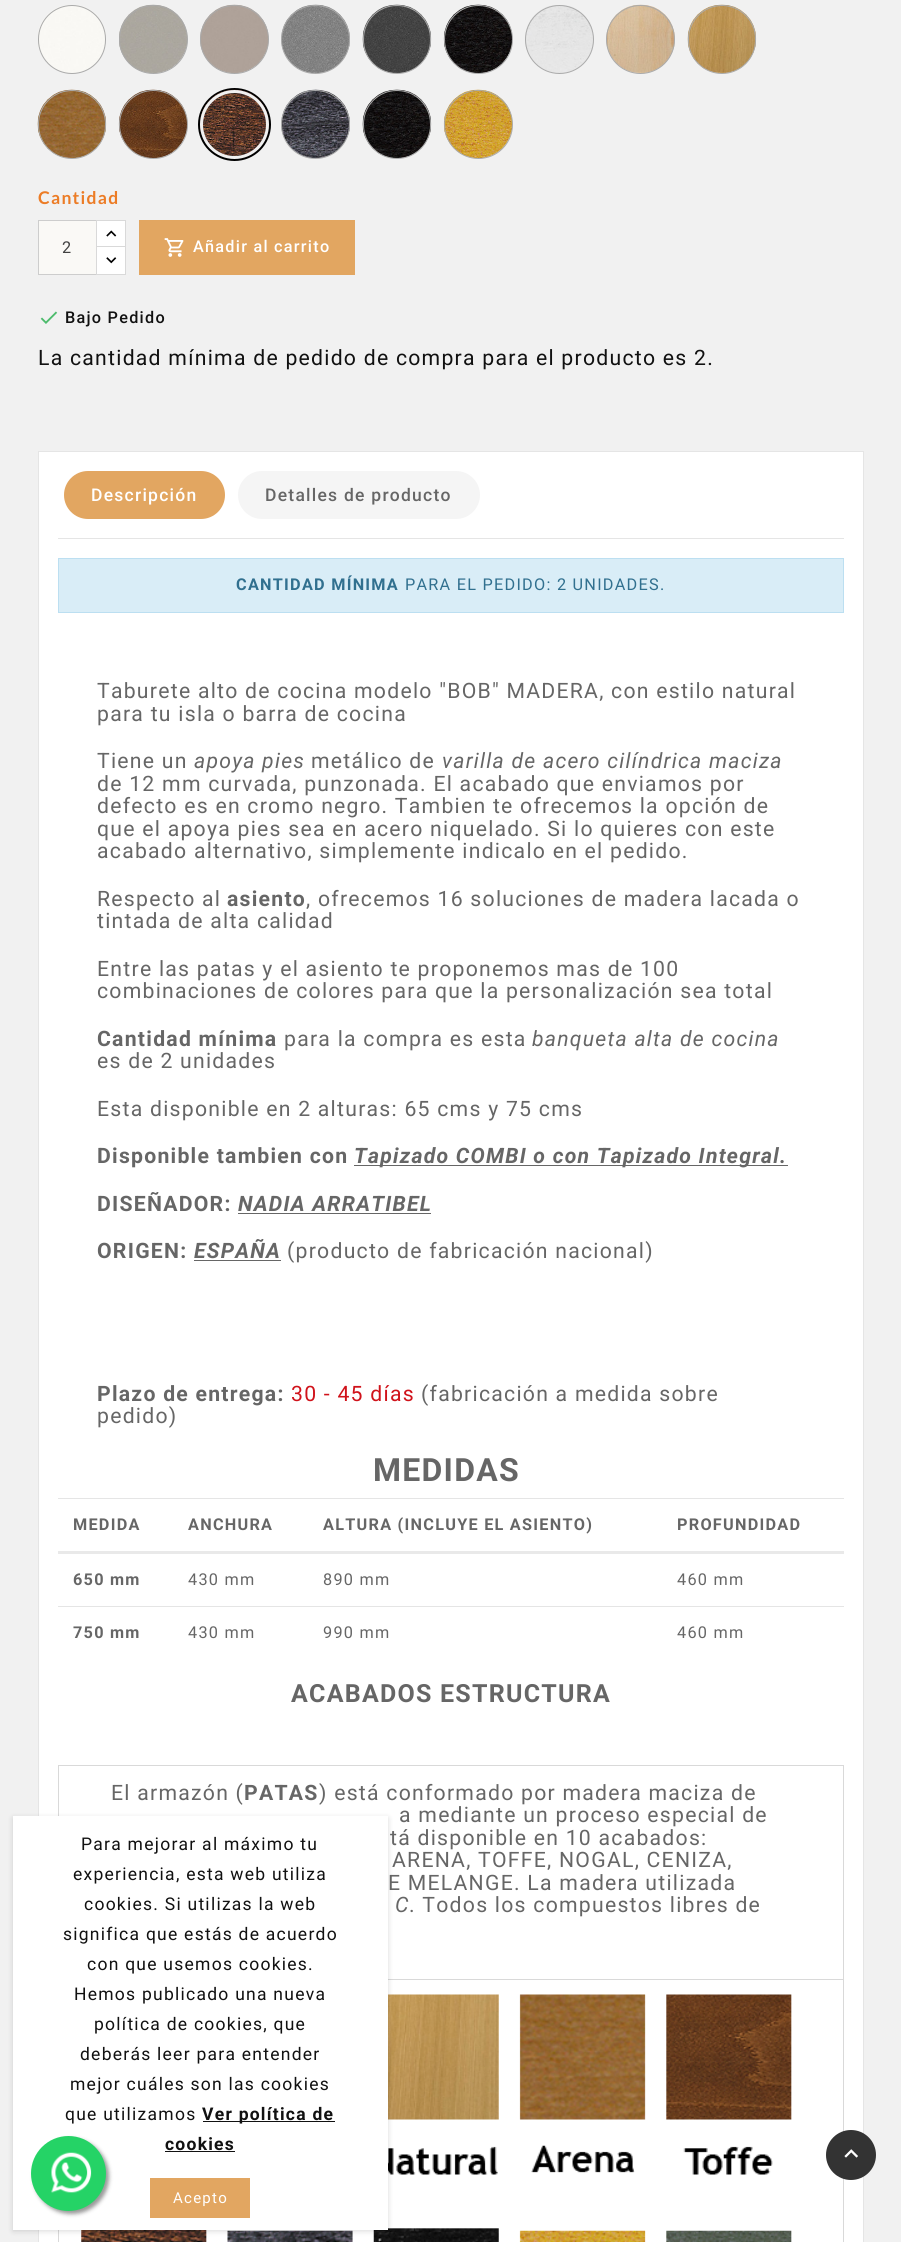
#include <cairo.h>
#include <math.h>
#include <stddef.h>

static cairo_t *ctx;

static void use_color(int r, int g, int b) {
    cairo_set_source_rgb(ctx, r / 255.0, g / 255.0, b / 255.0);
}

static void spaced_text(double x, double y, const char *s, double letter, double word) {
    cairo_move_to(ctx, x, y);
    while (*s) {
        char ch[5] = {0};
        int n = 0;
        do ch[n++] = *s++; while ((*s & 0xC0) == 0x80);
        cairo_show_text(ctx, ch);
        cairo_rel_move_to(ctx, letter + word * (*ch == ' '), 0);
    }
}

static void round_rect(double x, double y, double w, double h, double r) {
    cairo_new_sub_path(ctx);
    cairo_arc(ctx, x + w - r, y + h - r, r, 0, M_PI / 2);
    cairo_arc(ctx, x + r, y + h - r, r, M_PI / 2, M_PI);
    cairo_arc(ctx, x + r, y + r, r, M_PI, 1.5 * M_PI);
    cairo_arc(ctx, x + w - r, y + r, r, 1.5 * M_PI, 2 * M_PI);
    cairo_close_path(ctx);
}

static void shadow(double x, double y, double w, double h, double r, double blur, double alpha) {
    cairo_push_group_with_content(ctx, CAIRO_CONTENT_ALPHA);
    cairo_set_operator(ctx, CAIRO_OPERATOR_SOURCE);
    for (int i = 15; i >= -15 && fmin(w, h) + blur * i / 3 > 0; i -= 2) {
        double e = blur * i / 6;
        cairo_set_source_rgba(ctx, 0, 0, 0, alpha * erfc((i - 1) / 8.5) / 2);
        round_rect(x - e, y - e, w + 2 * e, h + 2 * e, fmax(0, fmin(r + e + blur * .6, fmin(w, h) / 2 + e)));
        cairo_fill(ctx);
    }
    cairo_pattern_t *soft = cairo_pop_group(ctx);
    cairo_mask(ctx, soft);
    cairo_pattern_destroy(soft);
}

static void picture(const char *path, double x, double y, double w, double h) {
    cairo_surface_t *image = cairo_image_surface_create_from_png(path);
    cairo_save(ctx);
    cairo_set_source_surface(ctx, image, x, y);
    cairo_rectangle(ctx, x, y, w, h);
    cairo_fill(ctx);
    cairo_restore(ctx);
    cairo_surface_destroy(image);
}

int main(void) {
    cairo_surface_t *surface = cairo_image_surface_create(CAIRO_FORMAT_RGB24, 901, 2242);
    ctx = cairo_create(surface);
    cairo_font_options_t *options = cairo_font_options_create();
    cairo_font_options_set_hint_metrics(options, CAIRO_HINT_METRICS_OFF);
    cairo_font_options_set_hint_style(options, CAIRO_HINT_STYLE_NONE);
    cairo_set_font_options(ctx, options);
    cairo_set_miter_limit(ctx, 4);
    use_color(241, 241, 241);
    cairo_paint(ctx);
    picture("img1.png", 38, 5, 68, 68);
    round_rect(38.5, 5.5, 67, 68, 33.5);
    use_color(170, 170, 170);
    cairo_set_line_width(ctx, 1);
    cairo_stroke(ctx);
    picture("img2.png", 119, 4, 69, 70);
    cairo_arc(ctx, 153.5, 39.5, 34, 0, 2 * M_PI);
    cairo_stroke(ctx);
    picture("img3.png", 200, 4, 69, 70);
    cairo_arc(ctx, 234.5, 39.5, 34, 0, 2 * M_PI);
    cairo_stroke(ctx);
    picture("img4.png", 281, 4, 69, 70);
    cairo_arc(ctx, 315.5, 39.5, 34, 0, 2 * M_PI);
    cairo_stroke(ctx);
    picture("img5.png", 362, 4, 70, 70);
    round_rect(363.5, 5.5, 67, 68, 33.5);
    cairo_stroke(ctx);
    picture("img6.png", 443, 4, 70, 70);
    cairo_arc(ctx, 478.5, 39.5, 34, 0, 2 * M_PI);
    cairo_stroke(ctx);
    picture("img7.png", 525, 5, 69, 68);
    cairo_arc(ctx, 559.5, 39.5, 34, 0, 2 * M_PI);
    cairo_stroke(ctx);
    picture("img8.png", 606, 4, 69, 70);
    cairo_arc(ctx, 640.5, 39.5, 34, 0, 2 * M_PI);
    cairo_stroke(ctx);
    picture("img9.png", 687, 4, 70, 70);
    round_rect(688.5, 5.5, 67, 68, 33.5);
    cairo_stroke(ctx);
    picture("img10.png", 37, 89, 70, 70);
    round_rect(38.5, 90.5, 67, 68, 33.5);
    cairo_stroke(ctx);
    picture("img11.png", 118, 89, 70, 70);
    cairo_arc(ctx, 153.5, 124.5, 34, 0, 2 * M_PI);
    cairo_stroke(ctx);
    cairo_arc(ctx, 234.5, 124.5, 35, 0, 2 * M_PI);
    use_color(0, 0, 0);
    cairo_set_line_width(ctx, 3);
    cairo_stroke(ctx);
    picture("img12.png", 200, 89, 69, 70);
    cairo_arc(ctx, 234.5, 124.5, 33, 0, 2 * M_PI);
    use_color(241, 241, 241);
    cairo_stroke(ctx);
    picture("img13.png", 281, 89, 69, 70);
    cairo_arc(ctx, 315.5, 124.5, 34, 0, 2 * M_PI);
    use_color(170, 170, 170);
    cairo_set_line_width(ctx, 1);
    cairo_stroke(ctx);
    picture("img14.png", 362, 89, 70, 70);
    round_rect(363.5, 90.5, 67, 68, 33.5);
    cairo_stroke(ctx);
    picture("img15.png", 443, 89, 70, 70);
    cairo_arc(ctx, 478.5, 124.5, 34, 0, 2 * M_PI);
    cairo_stroke(ctx);
    cairo_select_font_face(ctx, "Lato", CAIRO_FONT_SLANT_NORMAL, CAIRO_FONT_WEIGHT_BOLD);
    cairo_set_font_size(ctx, 17.5);
    use_color(236, 124, 38);
    spaced_text(38, 204, "Cantidad", 1.25, 0);
    use_color(250, 249, 246);
    cairo_rectangle(ctx, 39, 221, 57, 53);
    cairo_fill(ctx);
    cairo_rectangle(ctx, 38.5, 220.5, 59, 54);
    use_color(205, 205, 205);
    cairo_stroke(ctx);
    cairo_select_font_face(ctx, "Roboto", CAIRO_FONT_SLANT_NORMAL, CAIRO_FONT_WEIGHT_NORMAL);
    cairo_set_font_size(ctx, 16.25);
    use_color(65, 65, 65);
    spaced_text(62, 253, "2", 1.25, 0);
    use_color(255, 255, 255);
    cairo_rectangle(ctx, 97, 221, 28, 25);
    cairo_fill(ctx);
    cairo_rectangle(ctx, 96.5, 220.5, 29, 28);
    use_color(217, 217, 217);
    cairo_stroke(ctx);
    picture("img16.png", 106, 230, 11, 7);
    use_color(255, 255, 255);
    cairo_rectangle(ctx, 96.5, 246.5, 29, 28);
    cairo_fill_preserve(ctx);
    use_color(217, 217, 217);
    cairo_stroke(ctx);
    picture("img17.png", 106, 257, 11, 7);
    use_color(226, 166, 97);
    cairo_rectangle(ctx, 139, 220, 216, 55);
    cairo_fill(ctx);
    picture("img18.png", 164, 238, 20, 19);
    cairo_select_font_face(ctx, "Roboto Medium", CAIRO_FONT_SLANT_NORMAL, CAIRO_FONT_WEIGHT_NORMAL);
    use_color(255, 255, 255);
    spaced_text(193, 252, "Añadir al carrito", 1.25, 0);
    picture("img19.png", 40, 311, 18, 13);
    use_color(17, 17, 17);
    spaced_text(65, 323, "Bajo Pedido", 1.25, 0);
    cairo_select_font_face(ctx, "Roboto", CAIRO_FONT_SLANT_NORMAL, CAIRO_FONT_WEIGHT_NORMAL);
    cairo_set_font_size(ctx, 21.2);
    spaced_text(38, 365, "La cantidad mínima de pedido de compra para el producto es 2.", 1.25, 0);
    use_color(255, 255, 255);
    cairo_rectangle(ctx, 38.5, 451.5, 825, 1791);
    cairo_fill_preserve(ctx);
    use_color(229, 229, 229);
    cairo_stroke(ctx);
    cairo_rectangle(ctx, 58, 538, 786, 1);
    cairo_fill(ctx);
    use_color(226, 166, 97);
    round_rect(64, 471, 161, 48, 24);
    cairo_fill(ctx);
    cairo_select_font_face(ctx, "Roboto Medium", CAIRO_FONT_SLANT_NORMAL, CAIRO_FONT_WEIGHT_NORMAL);
    cairo_set_font_size(ctx, 17.5);
    use_color(255, 255, 255);
    spaced_text(91, 501, "Descripción", 1.25, 0);
    use_color(245, 245, 245);
    round_rect(238, 471, 242, 48, 24);
    cairo_fill(ctx);
    use_color(102, 102, 102);
    spaced_text(265, 501, "Detalles de producto", 1.25, 0);
    use_color(217, 237, 247);
    cairo_rectangle(ctx, 58.5, 558.5, 785, 54);
    cairo_fill_preserve(ctx);
    use_color(188, 223, 241);
    cairo_stroke(ctx);
    cairo_select_font_face(ctx, "Roboto", CAIRO_FONT_SLANT_NORMAL, CAIRO_FONT_WEIGHT_BOLD);
    cairo_set_font_size(ctx, 16.25);
    use_color(49, 112, 143);
    spaced_text(236, 590, "CANTIDAD MÍNIMA", 1.25, 0);
    cairo_select_font_face(ctx, "Roboto", CAIRO_FONT_SLANT_NORMAL, CAIRO_FONT_WEIGHT_NORMAL);
    spaced_text(405, 590, "PARA EL PEDIDO: 2 UNIDADES.", 1.25, 0);
    cairo_set_font_size(ctx, 21.2);
    use_color(102, 102, 102);
    spaced_text(97, 698, "Taburete alto de cocina modelo \"BOB\" MADERA, con estilo natural", 1.25, 0);
    spaced_text(97, 721, "para tu isla o barra de cocina", 1.25, 0);
    spaced_text(97, 768, "Tiene un", 1.25, 0);
    cairo_select_font_face(ctx, "Roboto", CAIRO_FONT_SLANT_ITALIC, CAIRO_FONT_WEIGHT_NORMAL);
    spaced_text(194, 768, "apoya pies", 1.25, 0);
    cairo_select_font_face(ctx, "Roboto", CAIRO_FONT_SLANT_NORMAL, CAIRO_FONT_WEIGHT_NORMAL);
    spaced_text(311, 768, "metálico de", 1.25, 0);
    cairo_select_font_face(ctx, "Roboto", CAIRO_FONT_SLANT_ITALIC, CAIRO_FONT_WEIGHT_NORMAL);
    spaced_text(442, 768, "varilla de acero cilíndrica maciza", 1.25, 0);
    cairo_select_font_face(ctx, "Roboto", CAIRO_FONT_SLANT_NORMAL, CAIRO_FONT_WEIGHT_NORMAL);
    spaced_text(97, 791, "de 12 mm curvada, punzonada. El acabado que enviamos por", 1.25, 0);
    spaced_text(97, 813, "defecto es en cromo negro. Tambien te ofrecemos la opción de", 1.25, 0);
    spaced_text(97, 836, "que el apoya pies sea en acero niquelado. Si lo quieres con este", 1.25, 0);
    spaced_text(97, 858, "acabado alternativo, simplemente indicalo en el pedido.", 1.25, 0);
    spaced_text(97, 906, "Respecto al", 1.25, 0);
    cairo_select_font_face(ctx, "Roboto", CAIRO_FONT_SLANT_NORMAL, CAIRO_FONT_WEIGHT_BOLD);
    spaced_text(227, 906, "asiento", 1.25, 0);
    cairo_select_font_face(ctx, "Roboto", CAIRO_FONT_SLANT_NORMAL, CAIRO_FONT_WEIGHT_NORMAL);
    spaced_text(306, 906, ", ofrecemos 16 soluciones de madera lacada o", 1.25, 0);
    spaced_text(97, 928, "tintada de alta calidad", 1.25, 0);
    spaced_text(97, 976, "Entre las patas y el asiento te proponemos mas de 100", 1.25, 0);
    spaced_text(97, 998, "combinaciones de colores para que la personalización sea total", 1.25, 0);
    cairo_select_font_face(ctx, "Roboto", CAIRO_FONT_SLANT_NORMAL, CAIRO_FONT_WEIGHT_BOLD);
    spaced_text(97, 1046, "Cantidad mínima", 1.25, 0);
    cairo_select_font_face(ctx, "Roboto", CAIRO_FONT_SLANT_NORMAL, CAIRO_FONT_WEIGHT_NORMAL);
    spaced_text(284, 1046, "para la compra es esta", 1.25, 0);
    cairo_select_font_face(ctx, "Roboto", CAIRO_FONT_SLANT_ITALIC, CAIRO_FONT_WEIGHT_NORMAL);
    spaced_text(532, 1046, "banqueta alta de cocina", 1.25, 0);
    cairo_select_font_face(ctx, "Roboto", CAIRO_FONT_SLANT_NORMAL, CAIRO_FONT_WEIGHT_NORMAL);
    spaced_text(97, 1068, "es de 2 unidades", 1.25, 0);
    spaced_text(97, 1116, "Esta disponible en 2 alturas: 65 cms y 75 cms", 1.25, 0);
    cairo_select_font_face(ctx, "Roboto", CAIRO_FONT_SLANT_NORMAL, CAIRO_FONT_WEIGHT_BOLD);
    spaced_text(97, 1163, "Disponible tambien con", 1.25, 0);
    cairo_rectangle(ctx, 354, 1165, 434, 1);
    cairo_fill(ctx);
    cairo_select_font_face(ctx, "Roboto", CAIRO_FONT_SLANT_ITALIC, CAIRO_FONT_WEIGHT_BOLD);
    spaced_text(354, 1163, "Tapizado COMBI o con Tapizado Integral.", 1.25, 0);
    cairo_select_font_face(ctx, "Roboto", CAIRO_FONT_SLANT_NORMAL, CAIRO_FONT_WEIGHT_BOLD);
    spaced_text(97, 1211, "DISEÑADOR:", 1.25, 0);
    cairo_select_font_face(ctx, "Roboto", CAIRO_FONT_SLANT_ITALIC, CAIRO_FONT_WEIGHT_BOLD);
    spaced_text(238, 1211, "NADIA ARRATIBEL", 1.25, 0);
    cairo_rectangle(ctx, 238, 1213, 193, 1);
    cairo_fill(ctx);
    cairo_select_font_face(ctx, "Roboto", CAIRO_FONT_SLANT_NORMAL, CAIRO_FONT_WEIGHT_BOLD);
    spaced_text(97, 1258, "ORIGEN:", 1.25, 0);
    cairo_select_font_face(ctx, "Roboto", CAIRO_FONT_SLANT_ITALIC, CAIRO_FONT_WEIGHT_BOLD);
    spaced_text(194, 1258, "ESPAÑA", 1.25, 0);
    cairo_rectangle(ctx, 194, 1260, 87, 1);
    cairo_fill(ctx);
    cairo_select_font_face(ctx, "Roboto", CAIRO_FONT_SLANT_NORMAL, CAIRO_FONT_WEIGHT_NORMAL);
    spaced_text(287, 1258, "(producto de fabricación nacional)", 1.25, 0);
    cairo_select_font_face(ctx, "Roboto", CAIRO_FONT_SLANT_NORMAL, CAIRO_FONT_WEIGHT_BOLD);
    spaced_text(97, 1401, "Plazo de entrega:", 1.25, 0);
    cairo_select_font_face(ctx, "Roboto", CAIRO_FONT_SLANT_NORMAL, CAIRO_FONT_WEIGHT_NORMAL);
    use_color(208, 18, 26);
    spaced_text(291, 1401, "30 - 45 días", 1.25, 0);
    use_color(102, 102, 102);
    spaced_text(421, 1401, "(fabricación a medida sobre", 1.25, 0);
    spaced_text(97, 1423, "pedido)", 1.25, 0);
    cairo_select_font_face(ctx, "Roboto", CAIRO_FONT_SLANT_NORMAL, CAIRO_FONT_WEIGHT_BOLD);
    cairo_set_font_size(ctx, 32);
    spaced_text(373, 1481, "MEDIDAS", 1.25, 0);
    cairo_set_font_size(ctx, 16.25);
    spaced_text(73, 1530, "MEDIDA", 1.25, 0);
    spaced_text(188, 1530, "ANCHURA", 1.25, 0);
    spaced_text(323, 1530, "ALTURA (INCLUYE EL ASIENTO)", 1.25, 0);
    use_color(229, 229, 229);
    cairo_rectangle(ctx, 58, 1498, 786, 1);
    cairo_fill(ctx);
    use_color(233, 233, 233);
    cairo_rectangle(ctx, 58, 1551, 786, 3);
    cairo_fill(ctx);
    use_color(102, 102, 102);
    spaced_text(677, 1530, "PROFUNDIDAD", 1.25, 0);
    spaced_text(73, 1585, "650 mm", 1.25, 0);
    cairo_select_font_face(ctx, "Roboto", CAIRO_FONT_SLANT_NORMAL, CAIRO_FONT_WEIGHT_NORMAL);
    spaced_text(188, 1585, "430 mm", 1.25, 0);
    spaced_text(323, 1585, "890 mm", 1.25, 0);
    spaced_text(677, 1585, "460 mm", 1.25, 0);
    cairo_select_font_face(ctx, "Roboto", CAIRO_FONT_SLANT_NORMAL, CAIRO_FONT_WEIGHT_BOLD);
    spaced_text(73, 1638, "750 mm", 1.25, 0);
    cairo_select_font_face(ctx, "Roboto", CAIRO_FONT_SLANT_NORMAL, CAIRO_FONT_WEIGHT_NORMAL);
    spaced_text(188, 1638, "430 mm", 1.25, 0);
    spaced_text(323, 1638, "990 mm", 1.25, 0);
    use_color(229, 229, 229);
    cairo_rectangle(ctx, 58, 1606, 786, 1);
    cairo_fill(ctx);
    use_color(102, 102, 102);
    spaced_text(677, 1638, "460 mm", 1.25, 0);
    cairo_select_font_face(ctx, "Roboto", CAIRO_FONT_SLANT_NORMAL, CAIRO_FONT_WEIGHT_BOLD);
    cairo_set_font_size(ctx, 25);
    spaced_text(291, 1702, "ACABADOS ESTRUCTURA", 1.25, 0);
    use_color(217, 217, 217);
    cairo_rectangle(ctx, 58, 1765, 786, 1);
    cairo_fill(ctx);
    cairo_rectangle(ctx, 388, 1979, 456, 1);
    cairo_fill(ctx);
    cairo_rectangle(ctx, 843, 1979, 1, 263);
    cairo_fill(ctx);
    cairo_rectangle(ctx, 843, 1765, 1, 215);
    cairo_fill(ctx);
    cairo_rectangle(ctx, 58, 1765, 1, 51);
    cairo_fill(ctx);
    cairo_select_font_face(ctx, "Roboto", CAIRO_FONT_SLANT_NORMAL, CAIRO_FONT_WEIGHT_NORMAL);
    cairo_set_font_size(ctx, 21.2);
    use_color(102, 102, 102);
    spaced_text(111, 1800, "El armazón (", 1.25, 0);
    cairo_select_font_face(ctx, "Roboto", CAIRO_FONT_SLANT_NORMAL, CAIRO_FONT_WEIGHT_BOLD);
    spaced_text(244, 1800, "PATAS", 1.25, 0);
    cairo_select_font_face(ctx, "Roboto", CAIRO_FONT_SLANT_NORMAL, CAIRO_FONT_WEIGHT_NORMAL);
    spaced_text(319, 1800, ") está conformado por madera maciza de", 1.25, 0);
    spaced_text(399, 1822, "a mediante un proceso especial de", 1.25, 0);
    spaced_text(390, 1845, "tá disponible en 10 acabados:", 1.25, 0);
    spaced_text(392, 1867, "ARENA, TOFFE, NOGAL, CENIZA,", 1.25, 0);
    spaced_text(388, 1890, "E MELANGE. La madera utilizada", 1.25, 0);
    cairo_select_font_face(ctx, "Roboto", CAIRO_FONT_SLANT_ITALIC, CAIRO_FONT_WEIGHT_NORMAL);
    spaced_text(395, 1912, "C", 1.25, 0);
    cairo_select_font_face(ctx, "Roboto", CAIRO_FONT_SLANT_NORMAL, CAIRO_FONT_WEIGHT_NORMAL);
    spaced_text(409, 1912, ". Todos los compuestos libres de", 1.25, 0);
    use_color(217, 217, 217);
    cairo_rectangle(ctx, 58, 2230, 1, 12);
    cairo_fill(ctx);
    picture("img20.png", 81, 1994, 711, 248);
    use_color(51, 51, 51);
    cairo_arc(ctx, 851, 2155, 25, 0, 2 * M_PI);
    cairo_fill(ctx);
    picture("img21.png", 844, 2149, 14, 9);
    use_color(0, 0, 0);
    shadow(13, 1818, 375, 413, 0, 3, 0.15);
    use_color(255, 255, 255);
    cairo_rectangle(ctx, 13, 1816, 375, 414);
    cairo_fill(ctx);
    cairo_set_font_size(ctx, 17.5);
    use_color(17, 17, 17);
    spaced_text(81, 1850, "Para mejorar al máximo tu", 1.25, 0);
    spaced_text(73, 1880, "experiencia, esta web utiliza", 1.25, 0);
    spaced_text(84, 1910, "cookies. Si utilizas la web", 1.25, 0);
    spaced_text(63, 1940, "significa que estás de acuerdo", 1.25, 0);
    spaced_text(87, 1970, "con que usemos cookies.", 1.25, 0);
    spaced_text(74, 2000, "Hemos publicado una nueva", 1.25, 0);
    spaced_text(94, 2030, "política de cookies, que", 1.25, 0);
    spaced_text(80, 2060, "deberás leer para entender", 1.25, 0);
    spaced_text(70, 2090, "mejor cuáles son las cookies", 1.25, 0);
    spaced_text(65, 2120, "que utilizamos", 1.25, 0);
    cairo_rectangle(ctx, 203, 2121, 132, 1);
    cairo_fill(ctx);
    cairo_select_font_face(ctx, "Roboto", CAIRO_FONT_SLANT_NORMAL, CAIRO_FONT_WEIGHT_BOLD);
    spaced_text(202, 2120, "Ver política de", 1.25, 0);
    spaced_text(165, 2150, "cookies", 1.25, 0);
    cairo_rectangle(ctx, 165, 2151, 70, 1);
    cairo_fill(ctx);
    use_color(226, 166, 97);
    cairo_rectangle(ctx, 150, 2178, 100, 40);
    cairo_fill(ctx);
    cairo_select_font_face(ctx, "Roboto", CAIRO_FONT_SLANT_NORMAL, CAIRO_FONT_WEIGHT_NORMAL);
    cairo_set_font_size(ctx, 15);
    use_color(255, 255, 255);
    spaced_text(173, 2203, "Acepto", 1.25, 0);
    use_color(153, 153, 153);
    shadow(34, 2139, 75, 75, 37.5, 2, 1);
    use_color(37, 211, 102);
    cairo_arc(ctx, 68.5, 2173.5, 37.5, 0, 2 * M_PI);
    cairo_fill(ctx);
    picture("img22.png", 51, 2152, 41, 41);
    cairo_surface_write_to_png(surface, "result.png");
    cairo_font_options_destroy(options);
    cairo_destroy(ctx);
    cairo_surface_destroy(surface);
    return 0;
}
